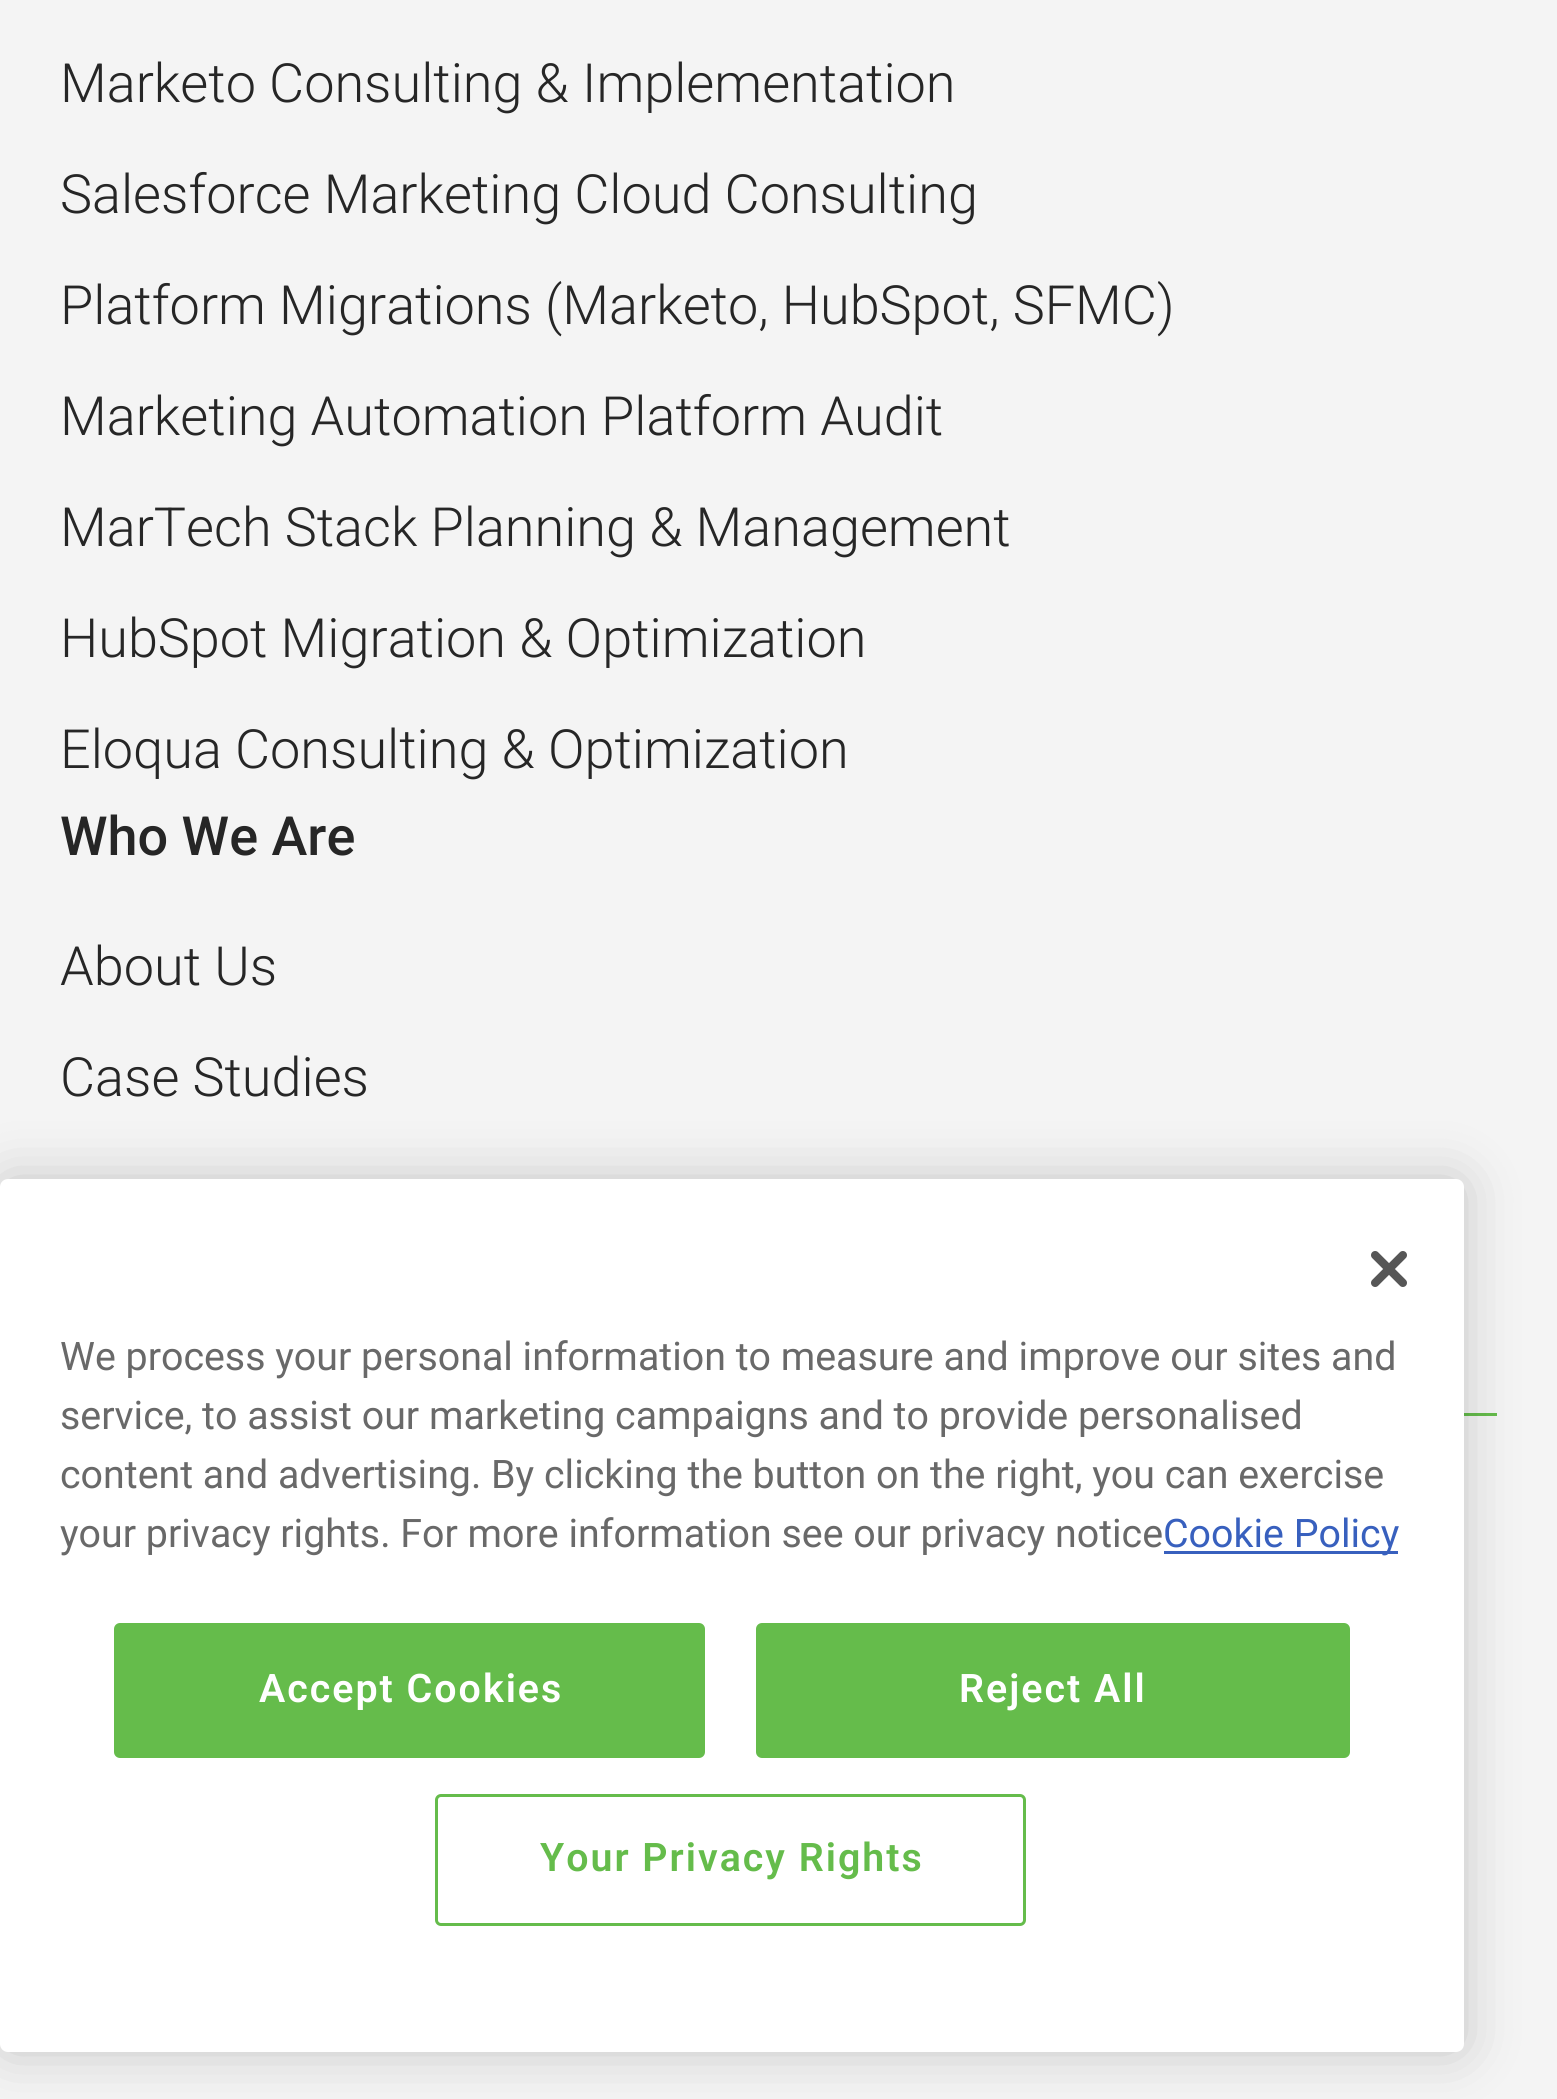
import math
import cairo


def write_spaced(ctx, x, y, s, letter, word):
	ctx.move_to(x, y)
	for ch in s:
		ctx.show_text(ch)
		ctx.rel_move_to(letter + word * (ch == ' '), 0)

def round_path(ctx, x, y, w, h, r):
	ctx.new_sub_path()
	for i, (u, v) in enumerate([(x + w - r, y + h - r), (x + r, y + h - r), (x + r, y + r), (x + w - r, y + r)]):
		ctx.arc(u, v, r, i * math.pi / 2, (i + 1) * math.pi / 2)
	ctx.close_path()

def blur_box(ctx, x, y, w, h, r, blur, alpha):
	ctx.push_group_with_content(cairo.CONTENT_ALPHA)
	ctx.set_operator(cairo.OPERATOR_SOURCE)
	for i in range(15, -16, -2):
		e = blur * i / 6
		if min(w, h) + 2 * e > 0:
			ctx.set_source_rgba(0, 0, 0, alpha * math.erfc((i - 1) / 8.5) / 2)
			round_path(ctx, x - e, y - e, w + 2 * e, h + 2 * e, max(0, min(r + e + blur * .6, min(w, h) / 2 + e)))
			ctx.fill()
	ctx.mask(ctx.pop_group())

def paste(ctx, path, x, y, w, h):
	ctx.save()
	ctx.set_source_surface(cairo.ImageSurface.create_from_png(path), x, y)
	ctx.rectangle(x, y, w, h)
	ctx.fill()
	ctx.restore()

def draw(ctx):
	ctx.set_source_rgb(0.957, 0.957, 0.957)
	ctx.paint()
	ctx.select_font_face('Roboto Light')
	ctx.set_font_size(54)
	ctx.set_source_rgb(0.149, 0.149, 0.149)
	for x, y, s in [
		(60, 102, 'Marketo Consulting & Implementation'),
		(60, 213, 'Salesforce Marketing Cloud Consulting'),
		(60, 324, 'Platform Migrations (Marketo, HubSpot, SFMC)'),
		(60, 435, 'Marketing Automation Platform Audit'),
		(60, 546, 'MarTech Stack Planning & Management'),
		(60, 657, 'HubSpot Migration & Optimization'),
		(60, 768, 'Eloqua Consulting & Optimization'),
	]:
		ctx.move_to(x, y)
		ctx.show_text(s)
	ctx.select_font_face('Roboto Medium')
	ctx.move_to(60, 855)
	ctx.show_text('Who We Are')
	ctx.select_font_face('Roboto Light')
	ctx.move_to(60, 985)
	ctx.show_text('About Us')
	ctx.move_to(60, 1096)
	ctx.show_text('Case Studies')
	ctx.set_source_rgb(0.396, 0.737, 0.294)
	ctx.rectangle(1464, 1413, 33, 3)
	ctx.fill()
	ctx.set_source_rgb(0, 0, 0)
	blur_box(ctx, 0, 1179, 1464, 873, 8, 27, 0.2)
	ctx.set_source_rgb(1, 1, 1)
	round_path(ctx, 0, 1179, 1464, 873, 8)
	ctx.fill()
	paste(ctx, 'media/1.png', 1371, 1251, 36, 36)
	ctx.select_font_face('Roboto')
	ctx.set_font_size(39.35)
	ctx.set_source_rgb(0.412, 0.412, 0.412)
	for x, y, s in [
		(60, 1370, 'We process your personal information to measure and improve our sites and'),
		(60, 1429, 'service, to assist our marketing campaigns and to provide personalised'),
		(60, 1488, 'content and advertising. By clicking the button on the right, you can exercise'),
		(60, 1547, 'your privacy rights. For more information see our privacy notice'),
	]:
		ctx.move_to(x, y)
		ctx.show_text(s)
	ctx.set_source_rgb(0.22, 0.376, 0.745)
	ctx.rectangle(1164, 1551, 234, 3)
	ctx.fill()
	ctx.move_to(1163, 1547)
	ctx.show_text('Cookie Policy')
	ctx.set_source_rgb(0.396, 0.737, 0.294)
	round_path(ctx, 115.5, 1624.5, 588, 132, 4.5)
	ctx.fill_preserve()
	ctx.set_line_width(3)
	ctx.stroke()
	ctx.select_font_face('Roboto SemiBold')
	ctx.set_source_rgb(1, 1, 1)
	write_spaced(ctx, 259, 1702, 'Accept Cookies', 2, 0)
	ctx.set_source_rgb(0.396, 0.737, 0.294)
	round_path(ctx, 757.5, 1624.5, 591, 132, 4.5)
	ctx.fill_preserve()
	ctx.stroke()
	ctx.set_source_rgb(1, 1, 1)
	write_spaced(ctx, 959, 1702, 'Reject All', 2, 0)
	round_path(ctx, 436.5, 1795.5, 588, 129, 4.5)
	ctx.set_source_rgb(0.396, 0.737, 0.294)
	ctx.stroke()
	write_spaced(ctx, 540, 1871, 'Your Privacy Rights', 2, 0)


surface = cairo.ImageSurface(cairo.FORMAT_RGB24, 1557, 2099)
ctx = cairo.Context(surface)
options = cairo.FontOptions()
options.set_hint_metrics(cairo.HINT_METRICS_OFF)
options.set_hint_style(cairo.HINT_STYLE_NONE)
ctx.set_font_options(options)
ctx.set_miter_limit(4)
draw(ctx)
surface.write_to_png('image.png')
